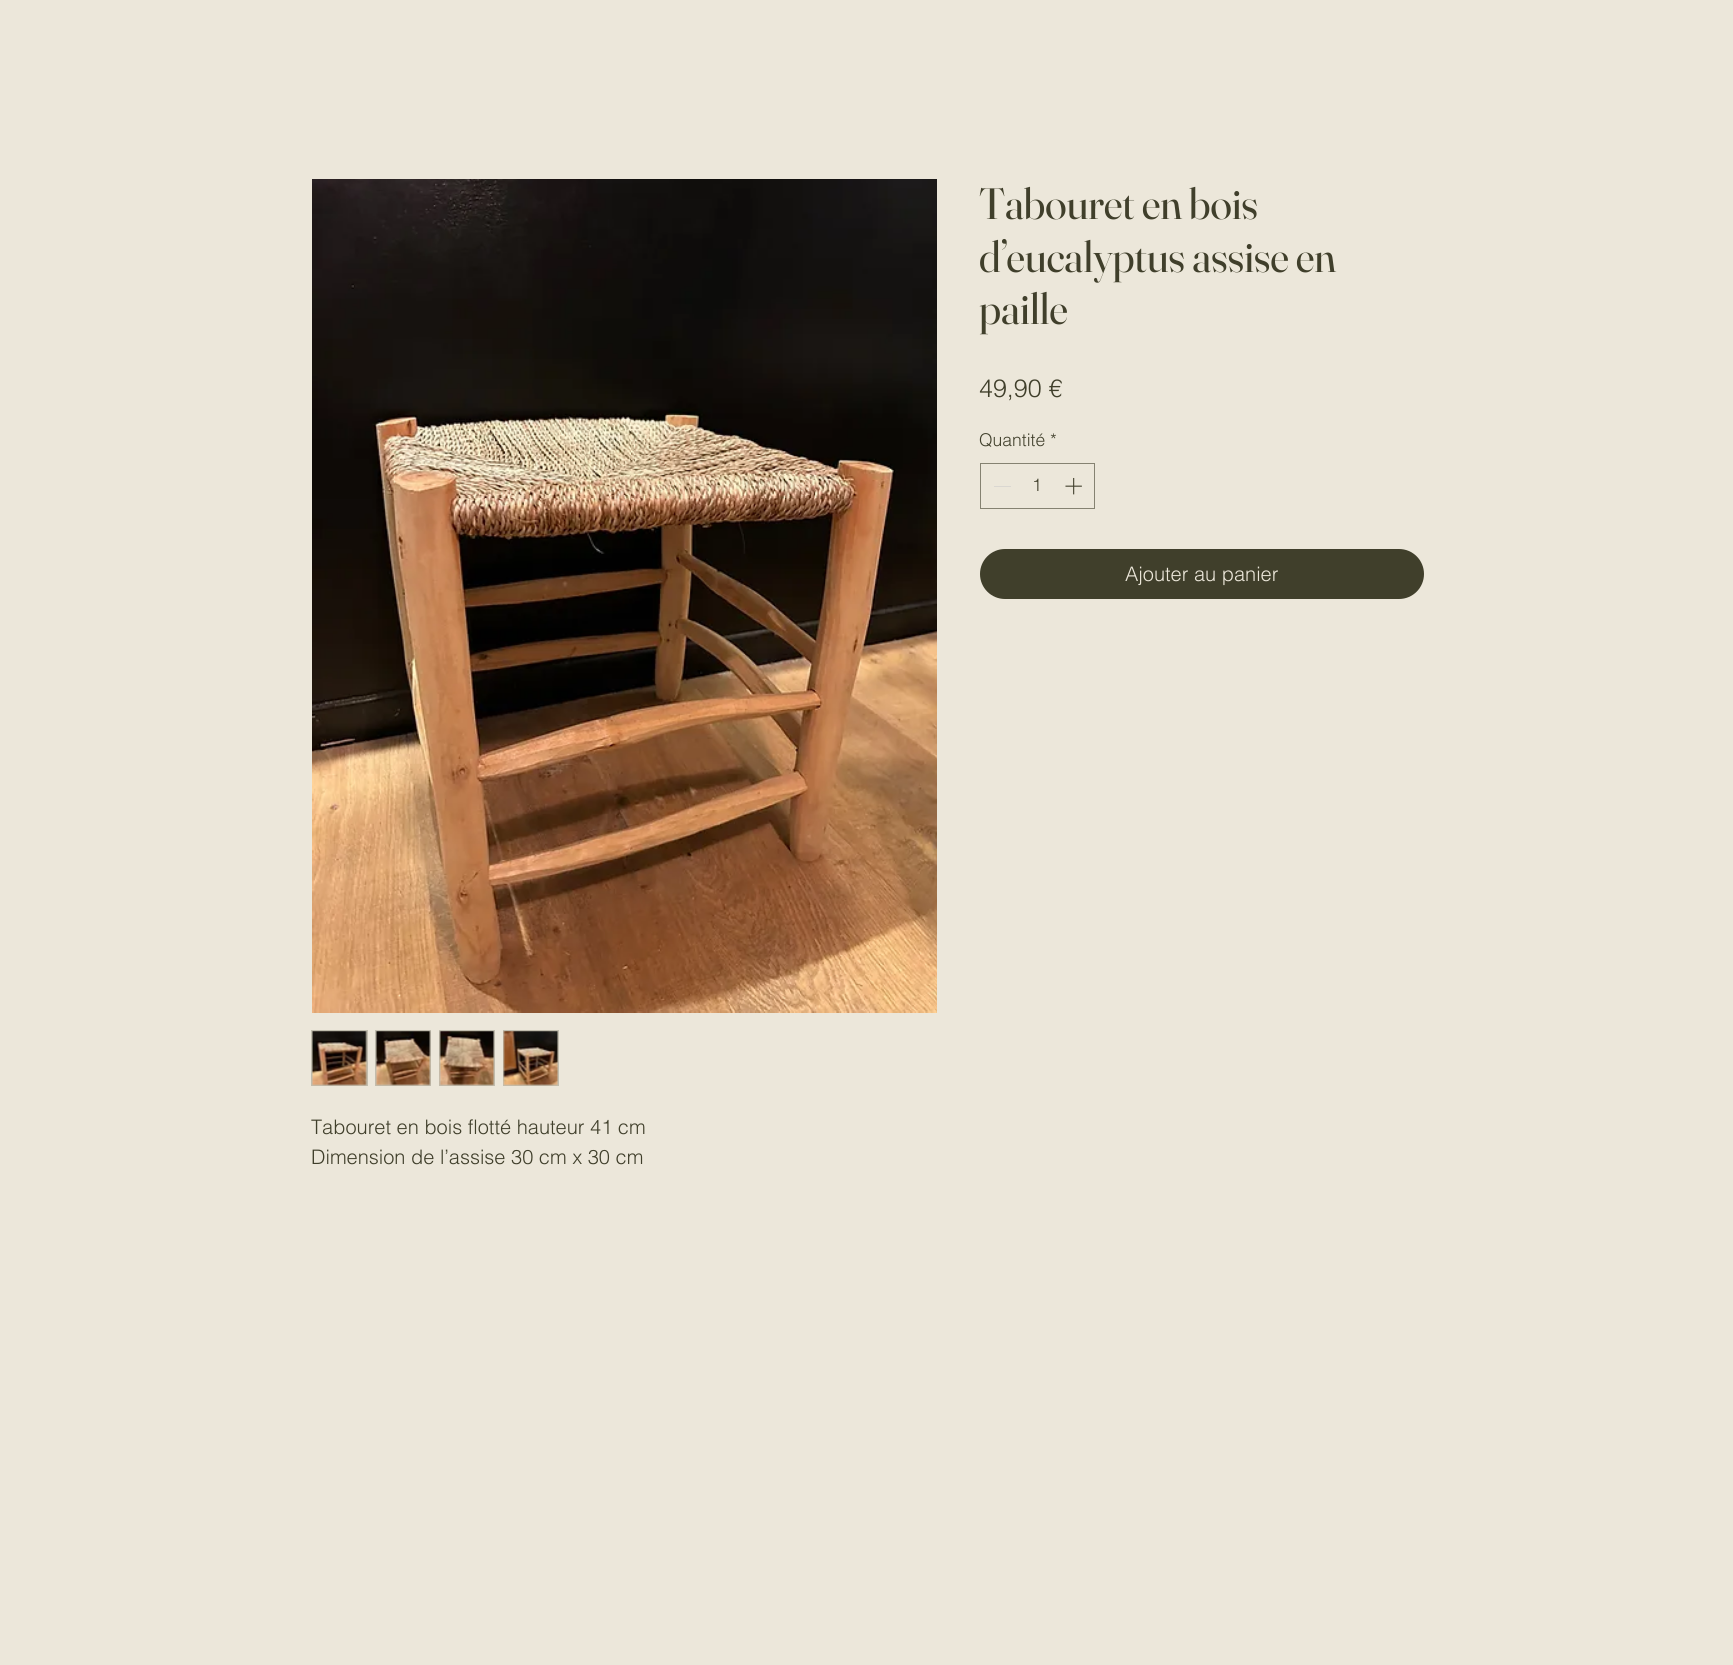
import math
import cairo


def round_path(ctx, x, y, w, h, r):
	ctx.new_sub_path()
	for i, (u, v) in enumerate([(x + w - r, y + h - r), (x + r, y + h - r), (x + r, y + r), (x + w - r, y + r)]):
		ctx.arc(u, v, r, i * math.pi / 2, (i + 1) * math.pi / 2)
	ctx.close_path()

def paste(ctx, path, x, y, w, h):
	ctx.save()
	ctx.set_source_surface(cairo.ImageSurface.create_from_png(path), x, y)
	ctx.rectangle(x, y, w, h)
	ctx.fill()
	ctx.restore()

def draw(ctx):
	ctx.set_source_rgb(0.925, 0.906, 0.855)
	ctx.paint()
	ctx.select_font_face('Fraunces')
	ctx.set_font_size(43.75)
	ctx.set_source_rgb(0.251, 0.247, 0.169)
	for x, y, s in [
		(979, 219, 'Tabouret en bois'),
		(979, 272, 'd’eucalyptus assise en'),
		(979, 324, 'paille'),
	]:
		ctx.move_to(x, y)
		ctx.show_text(s)
	ctx.select_font_face('helvetica Light')
	ctx.set_font_size(25)
	ctx.move_to(979, 397)
	ctx.show_text('49,90 €')
	ctx.set_font_size(17.5)
	ctx.move_to(979, 446)
	ctx.show_text('Quantité *')
	ctx.rectangle(980.5, 463.5, 114, 45)
	ctx.set_source_rgb(0.522, 0.51, 0.443)
	ctx.set_line_width(1)
	ctx.stroke()
	ctx.set_source_rgb(0.855, 0.843, 0.82)
	ctx.rectangle(994, 486, 17, 1)
	ctx.fill()
	ctx.set_source_rgb(0.251, 0.247, 0.169)
	ctx.move_to(1032, 491)
	ctx.show_text('1')
	paste(ctx, 'media/1.png', 1065, 477, 17, 18)
	round_path(ctx, 980, 549, 444, 50, 25)
	ctx.fill()
	ctx.set_font_size(20)
	ctx.set_source_rgb(0.925, 0.906, 0.855)
	ctx.move_to(1125, 581)
	ctx.show_text('Ajouter au panier')
	paste(ctx, 'media/2.png', 312, 179, 625, 834)
	ctx.set_source_rgb(0.757, 0.741, 0.682)
	ctx.rectangle(311, 1030, 57, 56)
	ctx.fill()
	paste(ctx, 'media/3.png', 312, 1031, 55, 55)
	ctx.rectangle(375, 1030, 56, 56)
	ctx.fill()
	paste(ctx, 'media/4.png', 375, 1031, 56, 55)
	ctx.rectangle(439, 1030, 56, 56)
	ctx.fill()
	paste(ctx, 'media/5.png', 439, 1031, 56, 55)
	ctx.rectangle(503, 1030, 56, 56)
	ctx.fill()
	paste(ctx, 'media/6.png', 503, 1031, 55, 55)
	ctx.set_source_rgb(0.251, 0.247, 0.169)
	ctx.move_to(311, 1134)
	ctx.show_text('Tabouret en bois flotté hauteur 41 cm')
	ctx.move_to(311, 1164)
	ctx.show_text('Dimension de l’assise 30 cm x 30 cm')


surface = cairo.ImageSurface(cairo.FORMAT_RGB24, 1733, 1665)
ctx = cairo.Context(surface)
options = cairo.FontOptions()
options.set_hint_metrics(cairo.HINT_METRICS_OFF)
options.set_hint_style(cairo.HINT_STYLE_NONE)
ctx.set_font_options(options)
ctx.set_miter_limit(4)
draw(ctx)
surface.write_to_png('image.png')
